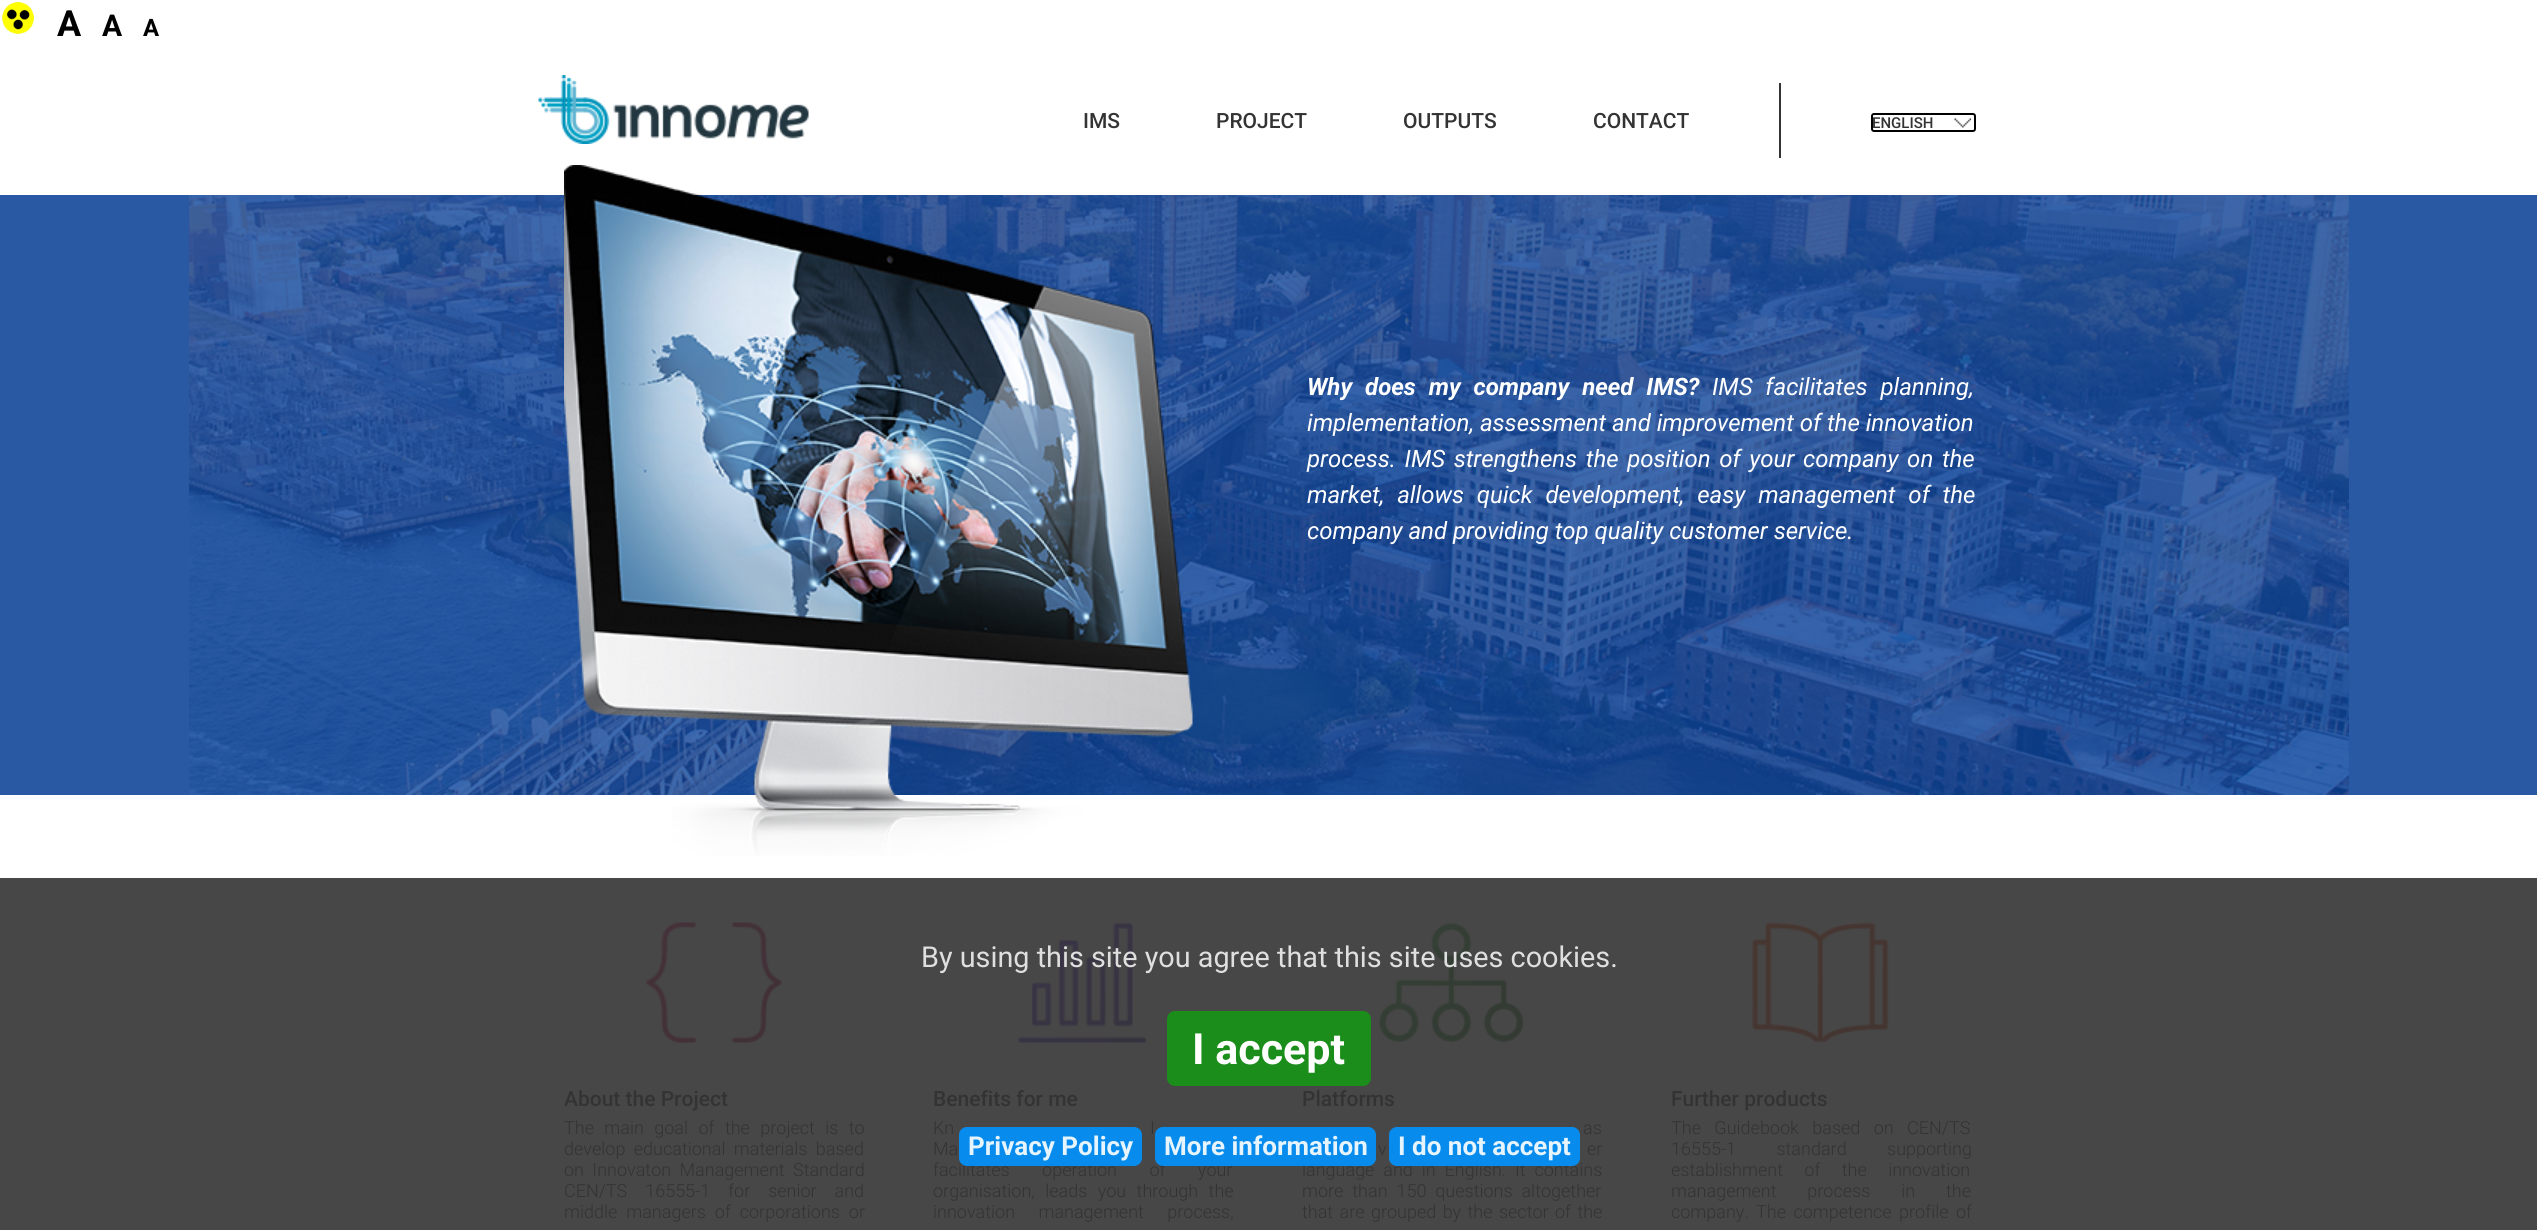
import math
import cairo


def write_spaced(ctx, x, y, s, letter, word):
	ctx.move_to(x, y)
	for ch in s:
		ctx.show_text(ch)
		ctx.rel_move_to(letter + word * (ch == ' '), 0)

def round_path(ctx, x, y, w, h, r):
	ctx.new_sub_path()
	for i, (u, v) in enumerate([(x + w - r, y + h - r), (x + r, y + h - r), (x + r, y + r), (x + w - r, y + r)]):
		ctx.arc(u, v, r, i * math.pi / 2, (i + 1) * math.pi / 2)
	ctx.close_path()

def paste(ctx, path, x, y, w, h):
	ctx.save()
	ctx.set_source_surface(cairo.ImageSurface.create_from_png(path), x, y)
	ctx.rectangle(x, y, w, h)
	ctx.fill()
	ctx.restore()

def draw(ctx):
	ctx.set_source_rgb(1, 1, 1)
	ctx.paint()
	ctx.set_source_rgb(0.278, 0.278, 0.278)
	ctx.rectangle(0, 878, 2537, 352)
	ctx.fill()
	paste(ctx, 'media/1.png', 2, 2, 32, 32)
	ctx.select_font_face('Roboto', cairo.FONT_SLANT_NORMAL, cairo.FONT_WEIGHT_BOLD)
	ctx.set_font_size(36)
	ctx.set_source_rgb(0, 0, 0)
	ctx.move_to(57, 36)
	ctx.show_text('A')
	ctx.set_font_size(30)
	ctx.move_to(102, 36)
	ctx.show_text('A')
	ctx.set_font_size(24)
	ctx.move_to(143, 36)
	ctx.show_text('A')
	paste(ctx, 'media/2.png', 538, 75, 271, 69)
	ctx.select_font_face('Roboto Medium')
	ctx.set_font_size(21)
	ctx.set_source_rgb(0.2, 0.2, 0.2)
	for x, y, s in [
		(1083, 128, 'IMS'),
		(1216, 128, 'PROJECT'),
		(1403, 128, 'OUTPUTS'),
		(1593, 128, 'CONTACT'),
	]:
		ctx.move_to(x, y)
		ctx.show_text(s)
	ctx.rectangle(1779, 83, 2, 75)
	ctx.fill()
	paste(ctx, 'media/3.png', 1954, 118, 17, 10)
	round_path(ctx, 1872, 114, 103, 17, 2)
	ctx.set_source_rgb(0, 0, 0)
	ctx.stroke()
	ctx.set_font_size(15)
	ctx.set_source_rgb(0.2, 0.2, 0.2)
	ctx.move_to(1872, 128)
	ctx.show_text('ENGLISH')
	ctx.set_source_rgb(0.161, 0.349, 0.635)
	ctx.rectangle(0, 195, 2537, 600)
	ctx.fill()
	paste(ctx, 'media/4.png', 189, 195, 2160, 600)
	paste(ctx, 'media/5.png', 564, 165, 629, 691)
	ctx.select_font_face('Roboto', cairo.FONT_SLANT_ITALIC, cairo.FONT_WEIGHT_BOLD)
	ctx.set_font_size(24)
	ctx.set_source_rgb(1, 1, 1)
	write_spaced(ctx, 1307, 395, 'Why does my company need IMS?', 0, 7)
	ctx.select_font_face('Roboto', cairo.FONT_SLANT_ITALIC)
	write_spaced(ctx, 1712, 395, 'IMS facilitates planning,', 0, 7)
	ctx.move_to(1307, 431)
	ctx.show_text('implementation, assessment and improvement of the innovation')
	write_spaced(ctx, 1307, 467, 'process. IMS strengthens the position of your company on the', 0, 2.75)
	write_spaced(ctx, 1307, 503, 'market, allows quick development, easy management of the', 0, 7)
	ctx.move_to(1307, 539)
	ctx.show_text('company and providing top quality customer service.')
	paste(ctx, 'media/7.png', 1018, 922, 128, 121)
	paste(ctx, 'media/8.png', 1378, 922, 146, 121)
	ctx.select_font_face('Roboto')
	ctx.set_font_size(28.8)
	ctx.set_source_rgb(0.875, 0.875, 0.875)
	ctx.move_to(921, 967)
	ctx.show_text('By using this site you agree that this site uses cookies.')
	ctx.set_source_rgb(0.102, 0.553, 0.102)
	round_path(ctx, 1167, 1011, 204, 75, 8)
	ctx.fill()
	ctx.select_font_face('Roboto', cairo.FONT_SLANT_NORMAL, cairo.FONT_WEIGHT_BOLD)
	ctx.set_font_size(43)
	ctx.set_source_rgb(1, 1, 1)
	ctx.move_to(1192, 1064)
	ctx.show_text('I accept')
	ctx.select_font_face('Roboto Light')
	ctx.set_font_size(18)
	ctx.set_source_rgb(0.2, 0.2, 0.2)
	write_spaced(ctx, 933, 1176, 'facilitates operation of your', 0, 28)
	ctx.set_source_rgba(0, 0.58, 1, 0.9)
	round_path(ctx, 959, 1127, 183, 39, 8)
	ctx.fill()
	ctx.select_font_face('Roboto', cairo.FONT_SLANT_NORMAL, cairo.FONT_WEIGHT_BOLD)
	ctx.set_font_size(26)
	ctx.set_source_rgb(0.902, 0.957, 0.992)
	ctx.move_to(968, 1155)
	ctx.show_text('Privacy Policy')
	ctx.select_font_face('Roboto Light')
	ctx.set_font_size(18)
	ctx.set_source_rgb(0.2, 0.2, 0.2)
	write_spaced(ctx, 1302, 1176, 'language and in English. It contains', 0, 4.5)
	ctx.set_source_rgba(0, 0.58, 1, 0.9)
	round_path(ctx, 1155, 1127, 221, 39, 8)
	ctx.fill()
	ctx.select_font_face('Roboto', cairo.FONT_SLANT_NORMAL, cairo.FONT_WEIGHT_BOLD)
	ctx.set_font_size(26)
	ctx.set_source_rgb(0.902, 0.957, 0.992)
	ctx.move_to(1164, 1155)
	ctx.show_text('More information')
	ctx.set_source_rgba(0, 0.58, 1, 0.9)
	round_path(ctx, 1389, 1127, 191, 39, 8)
	ctx.fill()
	ctx.set_source_rgb(0.902, 0.957, 0.992)
	ctx.move_to(1398, 1155)
	ctx.show_text('I do not accept')
	paste(ctx, 'media/6.png', 646, 922, 136, 121)
	ctx.select_font_face('Roboto Medium')
	ctx.set_font_size(21)
	ctx.set_source_rgb(0.2, 0.2, 0.2)
	ctx.move_to(564, 1106)
	ctx.show_text('About the Project')
	ctx.select_font_face('Roboto Light')
	ctx.set_font_size(18)
	write_spaced(ctx, 564, 1134, 'The main goal of the project is to', 0, 6)
	write_spaced(ctx, 564, 1155, 'develop educational materials based', 0, 4)
	write_spaced(ctx, 564, 1176, 'on Innovaton Management Standard', 0, 4)
	write_spaced(ctx, 564, 1197, 'CEN/TS 16555-1 for senior and', 0, 13.5)
	write_spaced(ctx, 564, 1218, 'middle managers of corporations or', 0, 4.5)
	ctx.select_font_face('Roboto Medium')
	ctx.set_font_size(21)
	ctx.move_to(933, 1106)
	ctx.show_text('Benefits for me')
	ctx.select_font_face('Roboto Light')
	ctx.set_font_size(18)
	for x, y, s in [
		(933, 1134, 'Kn'),
		(1150, 1134, 'I'),
		(933, 1155, 'Ma'),
	]:
		write_spaced(ctx, x, y, s, 0, 38)
	write_spaced(ctx, 933, 1197, 'organisation, leads you through the', 0, 6)
	write_spaced(ctx, 933, 1218, 'innovation management process,', 0, 19)
	ctx.select_font_face('Roboto Medium')
	ctx.set_font_size(21)
	ctx.move_to(1302, 1106)
	ctx.show_text('Platforms')
	ctx.select_font_face('Roboto Light')
	ctx.set_font_size(18)
	write_spaced(ctx, 1583, 1134, 'as', 0, 3)
	write_spaced(ctx, 1378, 1155, 'v', 0, 14)
	write_spaced(ctx, 1587, 1155, 'er', 0, 14)
	write_spaced(ctx, 1302, 1197, 'more than 150 questions altogether', 0, 4.5)
	write_spaced(ctx, 1302, 1218, 'that are grouped by the sector of the', 0, 2)
	paste(ctx, 'media/9.png', 1752, 922, 137, 121)
	ctx.select_font_face('Roboto Medium')
	ctx.set_font_size(21)
	ctx.move_to(1671, 1106)
	ctx.show_text('Further products')
	ctx.select_font_face('Roboto Light')
	ctx.set_font_size(18)
	write_spaced(ctx, 1671, 1134, 'The Guidebook based on CEN/TS', 0, 9)
	write_spaced(ctx, 1671, 1155, '16555-1 standard supporting', 0, 36)
	write_spaced(ctx, 1671, 1176, 'establishment of the innovation', 0, 17)
	write_spaced(ctx, 1671, 1197, 'management process in the', 0, 26.5)
	write_spaced(ctx, 1671, 1218, 'company. The competence profile of', 0, 3)


surface = cairo.ImageSurface(cairo.FORMAT_RGB24, 2537, 1230)
ctx = cairo.Context(surface)
options = cairo.FontOptions()
options.set_hint_metrics(cairo.HINT_METRICS_OFF)
options.set_hint_style(cairo.HINT_STYLE_NONE)
ctx.set_font_options(options)
ctx.set_miter_limit(4)
draw(ctx)
surface.write_to_png('image.png')
